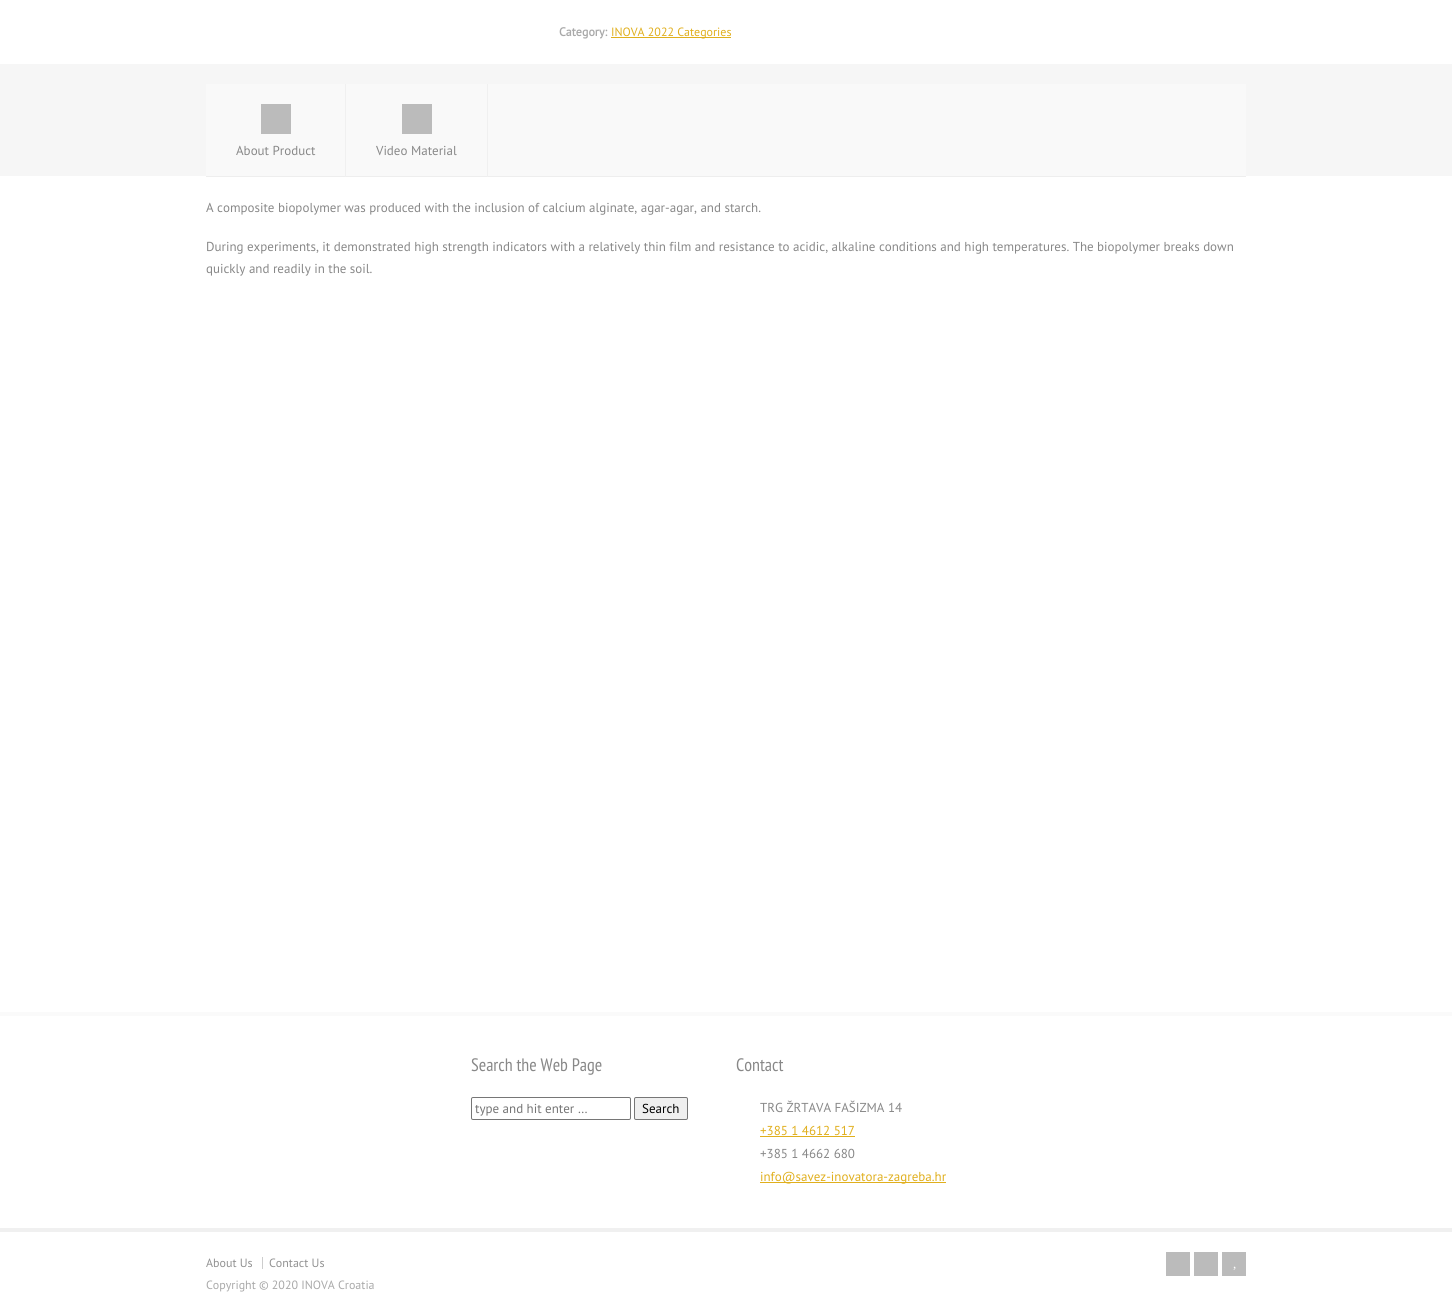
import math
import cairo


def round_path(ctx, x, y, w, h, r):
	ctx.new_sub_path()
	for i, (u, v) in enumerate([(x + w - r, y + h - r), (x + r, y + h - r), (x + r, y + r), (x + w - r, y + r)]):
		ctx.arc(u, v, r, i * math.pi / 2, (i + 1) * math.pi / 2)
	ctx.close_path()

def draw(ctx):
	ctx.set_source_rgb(1, 1, 1)
	ctx.paint()
	ctx.select_font_face('PT Sans', cairo.FONT_SLANT_NORMAL, cairo.FONT_WEIGHT_BOLD)
	ctx.set_font_size(12)
	ctx.set_source_rgb(0.663, 0.663, 0.663)
	ctx.move_to(559, 36)
	ctx.show_text('Category:')
	ctx.set_source_rgb(0.878, 0.686, 0.114)
	ctx.rectangle(611, 37, 120, 1)
	ctx.fill()
	ctx.select_font_face('PT Sans')
	ctx.move_to(611, 36)
	ctx.show_text('INOVA 2022 Categories')
	ctx.set_source_rgb(0.961, 0.961, 0.961)
	ctx.rectangle(0, 64, 1452, 112)
	ctx.fill()
	ctx.set_source_rgb(0.976, 0.976, 0.976)
	ctx.rectangle(206, 84, 1040, 92)
	ctx.fill()
	ctx.set_source_rgb(0.933, 0.933, 0.933)
	ctx.rectangle(206, 176, 1040, 1)
	ctx.fill()
	ctx.set_source_rgb(0.941, 0.941, 0.941)
	ctx.rectangle(345, 84, 1, 93)
	ctx.fill()
	ctx.set_source_rgb(0.733, 0.733, 0.733)
	ctx.rectangle(261, 104, 30, 30)
	ctx.fill()
	ctx.set_font_size(13)
	ctx.set_source_rgb(0.533, 0.533, 0.533)
	ctx.move_to(236, 155)
	ctx.show_text('About Product')
	ctx.set_source_rgb(0.941, 0.941, 0.941)
	ctx.rectangle(487, 84, 1, 93)
	ctx.fill()
	ctx.set_source_rgb(0.733, 0.733, 0.733)
	ctx.rectangle(402, 104, 30, 30)
	ctx.fill()
	ctx.set_source_rgb(0.533, 0.533, 0.533)
	for x, y, s in [
		(376, 155, 'Video Material'),
		(206, 212, 'A composite biopolymer was produced with the inclusion of calcium alginate, agar-agar, and starch.'),
		(206, 251, 'During experiments, it demonstrated high strength indicators with a relatively thin film and resistance to acidic, alkaline conditions and high temperatures. The biopolymer breaks down'),
		(206, 273, 'quickly and readily in the soil.'),
	]:
		ctx.move_to(x, y)
		ctx.show_text(s)
	ctx.set_source_rgb(0.98, 0.98, 0.98)
	ctx.rectangle(0, 1012, 1452, 4)
	ctx.fill()
	ctx.select_font_face('PT Sans Narrow')
	ctx.set_font_size(18)
	ctx.set_source_rgb(0.533, 0.533, 0.533)
	ctx.move_to(471, 1071)
	ctx.show_text('Search the Web Page')
	round_path(ctx, 471.5, 1097.5, 159, 22, 1.5)
	ctx.set_source_rgb(0.463, 0.463, 0.463)
	ctx.set_line_width(1)
	ctx.stroke()
	ctx.select_font_face('PT Sans')
	ctx.set_font_size(13)
	ctx.set_source_rgb(0.459, 0.459, 0.459)
	ctx.move_to(475, 1113)
	ctx.show_text('type and hit enter …')
	ctx.set_source_rgb(0.937, 0.937, 0.937)
	round_path(ctx, 634.5, 1097.5, 53, 22, 1.5)
	ctx.fill_preserve()
	ctx.set_source_rgb(0.463, 0.463, 0.463)
	ctx.stroke()
	ctx.set_source_rgb(0, 0, 0)
	ctx.move_to(642, 1113)
	ctx.show_text('Search')
	ctx.select_font_face('PT Sans Narrow')
	ctx.set_font_size(18)
	ctx.set_source_rgb(0.533, 0.533, 0.533)
	ctx.move_to(736, 1071)
	ctx.show_text('Contact')
	ctx.select_font_face('PT Sans')
	ctx.set_font_size(13)
	ctx.move_to(760, 1112)
	ctx.show_text('TRG ŽRTAVA FAŠIZMA 14')
	ctx.set_source_rgb(0.878, 0.686, 0.114)
	ctx.move_to(760, 1135)
	ctx.show_text('+385 1 4612 517')
	ctx.rectangle(760, 1136, 95, 1)
	ctx.fill()
	ctx.set_source_rgb(0.533, 0.533, 0.533)
	ctx.move_to(760, 1158)
	ctx.show_text('+385 1 4662 680')
	ctx.set_source_rgb(0.878, 0.686, 0.114)
	ctx.rectangle(760, 1182, 186, 1)
	ctx.fill()
	ctx.move_to(760, 1181)
	ctx.show_text('info@savez-inovatora-zagreba.hr')
	ctx.set_source_rgb(0.941, 0.941, 0.941)
	ctx.rectangle(0, 1228, 1452, 4)
	ctx.fill()
	ctx.set_font_size(12)
	ctx.set_source_rgb(0.569, 0.569, 0.569)
	ctx.move_to(206, 1267)
	ctx.show_text('About Us')
	ctx.set_source_rgb(0.804, 0.804, 0.804)
	ctx.rectangle(262, 1257, 1, 12)
	ctx.fill()
	ctx.set_source_rgb(0.569, 0.569, 0.569)
	ctx.move_to(269, 1267)
	ctx.show_text('Contact Us')
	ctx.set_source_rgb(0.663, 0.663, 0.663)
	ctx.move_to(206, 1289)
	ctx.show_text('Copyright © 2020 INOVA Croatia')
	ctx.set_source_rgb(0.733, 0.733, 0.733)
	ctx.rectangle(1166, 1252, 24, 24)
	ctx.rectangle(1194, 1252, 24, 24)
	ctx.rectangle(1222, 1252, 24, 24)
	ctx.fill()
	ctx.select_font_face('Liberation Serif')
	ctx.set_font_size(13)
	ctx.set_source_rgb(1, 1, 1)
	ctx.move_to(1233, 1268)
	ctx.show_text(',')


surface = cairo.ImageSurface(cairo.FORMAT_RGB24, 1452, 1296)
ctx = cairo.Context(surface)
options = cairo.FontOptions()
options.set_hint_metrics(cairo.HINT_METRICS_OFF)
options.set_hint_style(cairo.HINT_STYLE_NONE)
ctx.set_font_options(options)
ctx.set_miter_limit(4)
draw(ctx)
surface.write_to_png('image.png')
